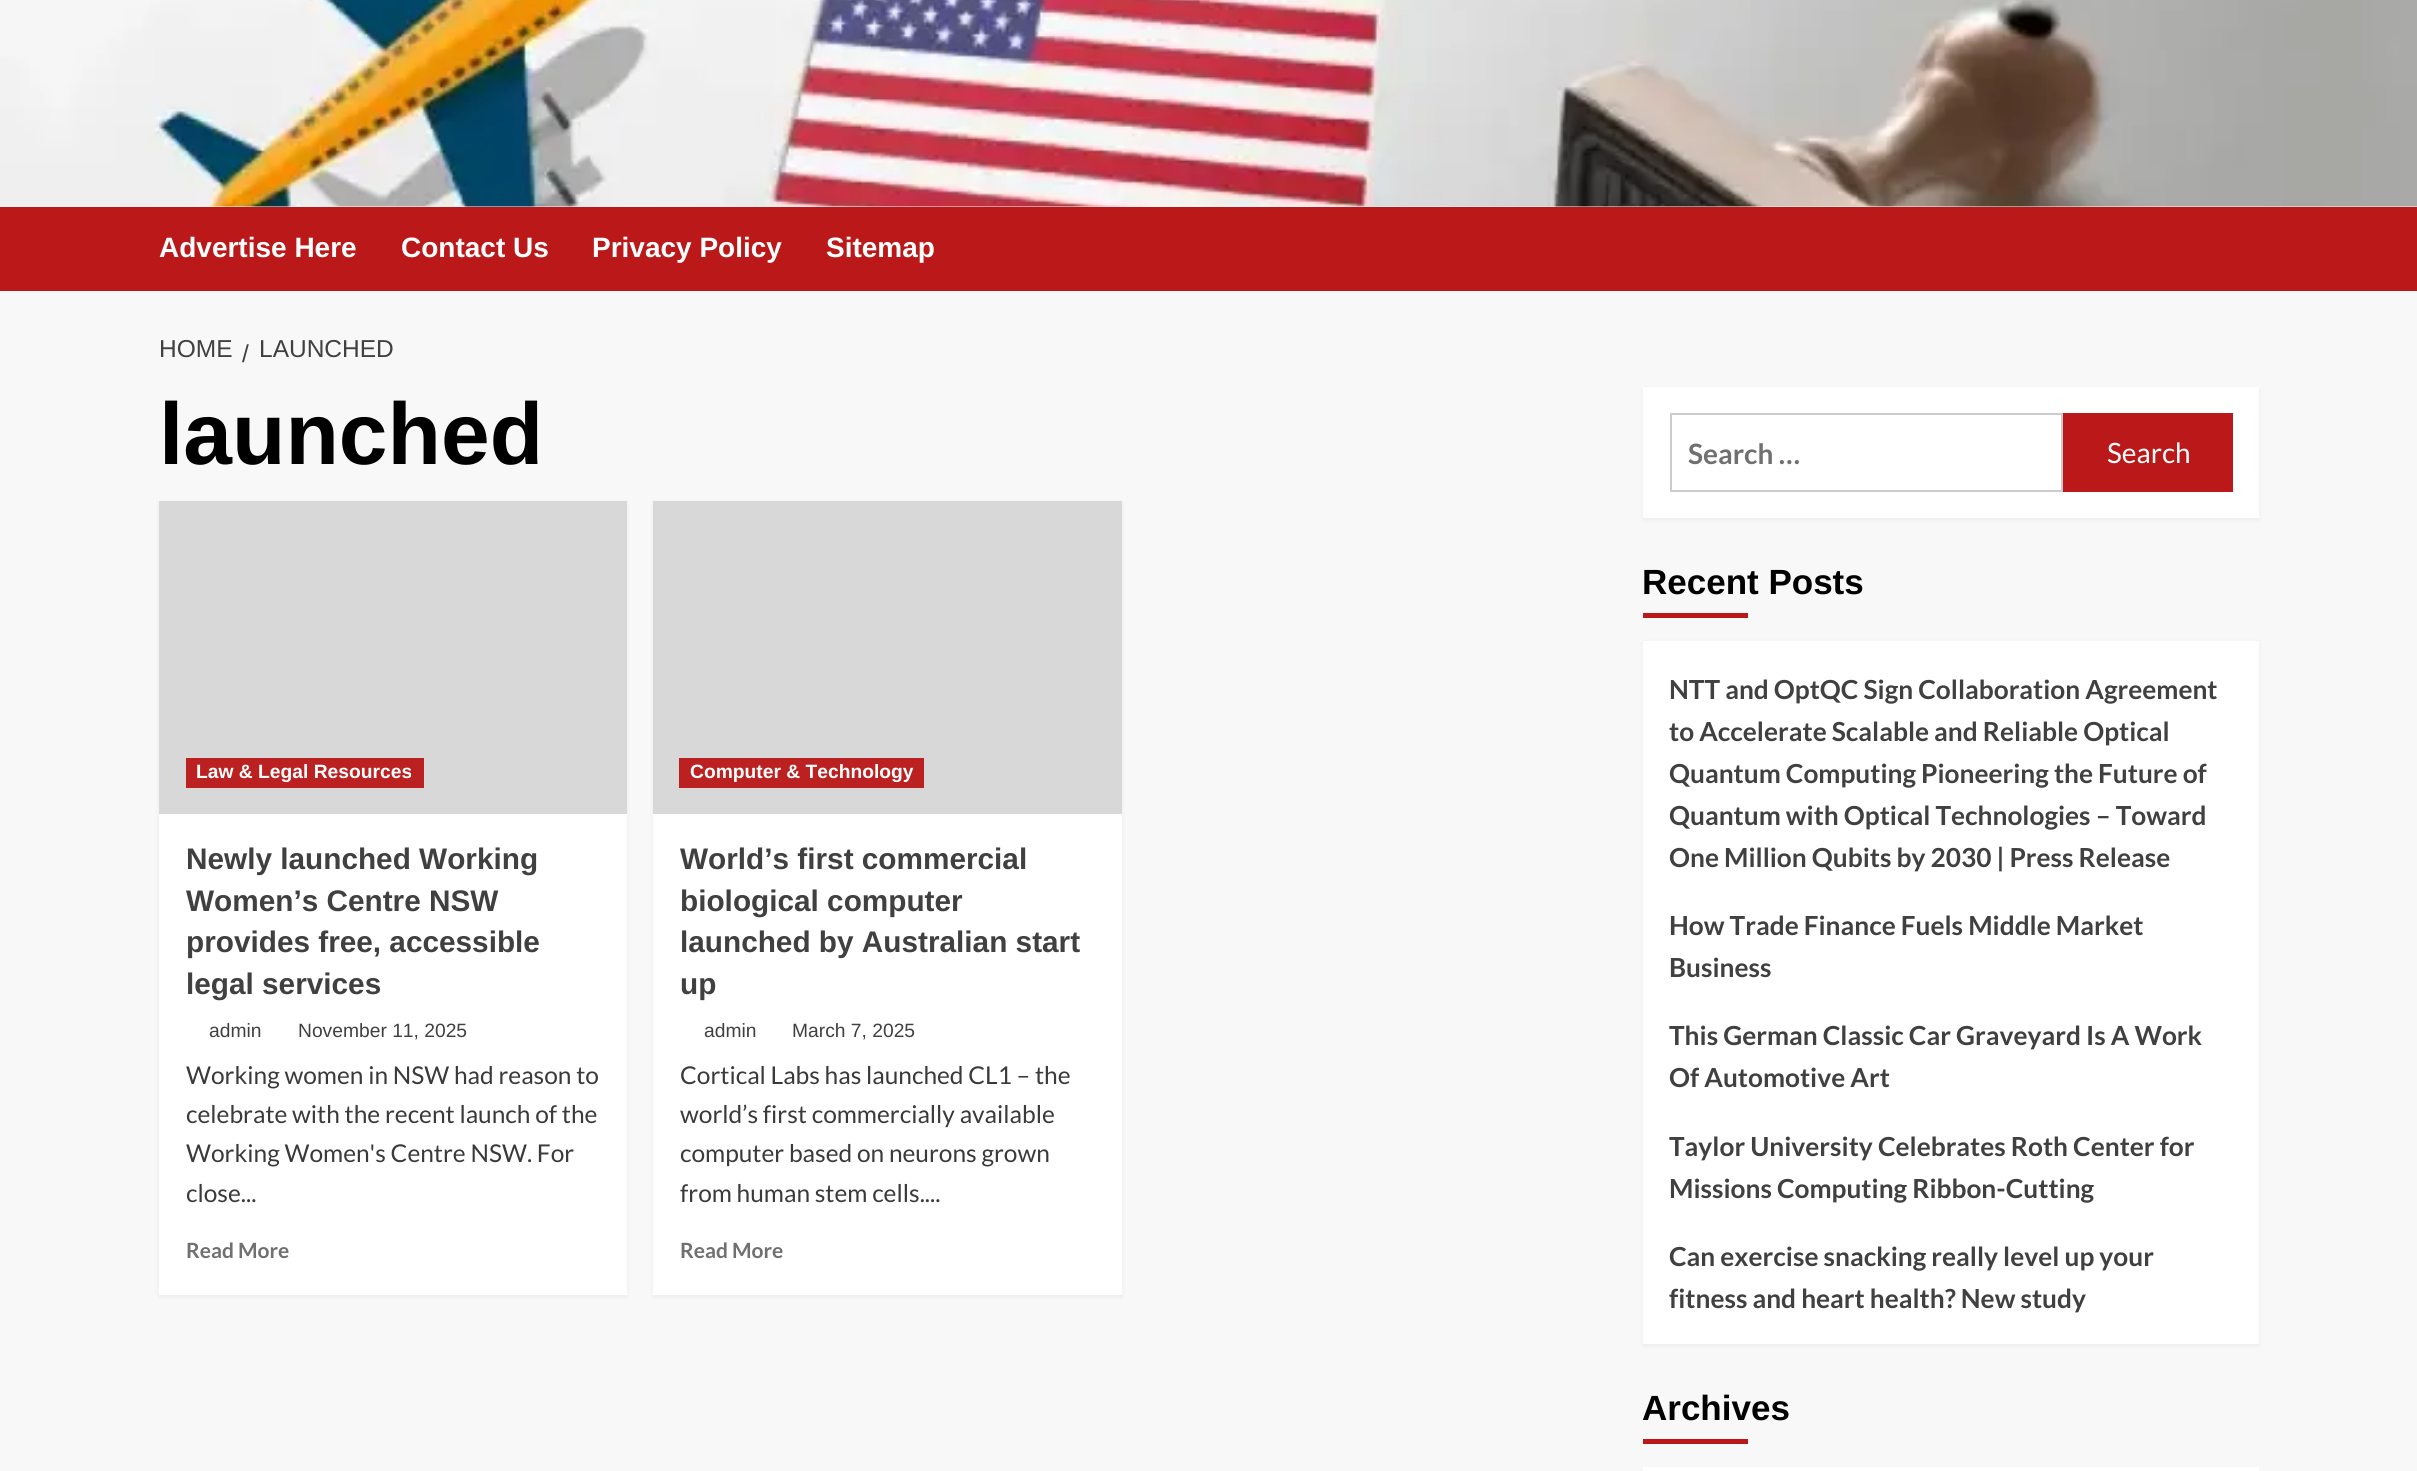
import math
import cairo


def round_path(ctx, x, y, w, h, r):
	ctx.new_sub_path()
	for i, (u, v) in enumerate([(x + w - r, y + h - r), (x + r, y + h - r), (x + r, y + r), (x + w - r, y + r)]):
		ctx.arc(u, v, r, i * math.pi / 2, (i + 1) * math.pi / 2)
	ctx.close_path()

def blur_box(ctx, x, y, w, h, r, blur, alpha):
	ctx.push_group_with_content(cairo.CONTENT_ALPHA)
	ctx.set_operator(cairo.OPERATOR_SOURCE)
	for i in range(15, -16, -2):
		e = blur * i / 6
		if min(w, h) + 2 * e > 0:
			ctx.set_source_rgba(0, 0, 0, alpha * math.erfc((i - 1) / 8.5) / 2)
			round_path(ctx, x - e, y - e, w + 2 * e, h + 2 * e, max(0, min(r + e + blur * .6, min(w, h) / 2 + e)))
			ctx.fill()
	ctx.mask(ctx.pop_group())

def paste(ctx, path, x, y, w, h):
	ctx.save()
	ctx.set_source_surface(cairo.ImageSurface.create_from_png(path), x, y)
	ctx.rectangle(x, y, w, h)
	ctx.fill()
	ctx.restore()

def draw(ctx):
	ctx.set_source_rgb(0.969, 0.969, 0.969)
	ctx.paint()
	paste(ctx, 'media/1.png', 0, 0, 2417, 207)
	ctx.set_source_rgb(0.733, 0.098, 0.098)
	ctx.rectangle(0, 207, 2417, 84)
	ctx.fill()
	ctx.select_font_face('Liberation Sans', cairo.FONT_SLANT_NORMAL, cairo.FONT_WEIGHT_BOLD)
	ctx.set_font_size(28)
	ctx.set_source_rgb(1, 1, 1)
	for x, y, s in [
		(159, 257, 'Advertise Here'),
		(401, 257, 'Contact Us'),
		(592, 257, 'Privacy Policy'),
		(826, 257, 'Sitemap'),
	]:
		ctx.move_to(x, y)
		ctx.show_text(s)
	ctx.select_font_face('Liberation Sans')
	ctx.set_font_size(24.5)
	ctx.set_source_rgb(0.251, 0.251, 0.251)
	for x, y, s in [
		(159, 357, 'HOME'),
		(242, 362, '/'),
		(259, 357, 'LAUNCHED'),
	]:
		ctx.move_to(x, y)
		ctx.show_text(s)
	ctx.select_font_face('Liberation Sans', cairo.FONT_SLANT_NORMAL, cairo.FONT_WEIGHT_BOLD)
	ctx.set_font_size(87.5)
	ctx.set_source_rgb(0, 0, 0)
	ctx.move_to(159, 464)
	ctx.show_text('launched')
	ctx.set_source_rgb(0, 0, 0)
	blur_box(ctx, 159, 502, 468, 795, 0, 2, 0.05)
	ctx.set_source_rgb(1, 1, 1)
	ctx.rectangle(159, 814, 468, 481)
	ctx.fill()
	ctx.set_source_rgb(0.847, 0.847, 0.847)
	ctx.rectangle(159, 501, 468, 313)
	ctx.fill()
	ctx.set_source_rgb(0.737, 0.129, 0.129)
	ctx.rectangle(186, 758, 238, 30)
	ctx.fill()
	ctx.set_font_size(19.25)
	ctx.set_source_rgb(1, 1, 1)
	ctx.move_to(196, 778)
	ctx.show_text('Law & Legal Resources')
	ctx.set_font_size(29.75)
	ctx.set_source_rgb(0.251, 0.251, 0.251)
	for x, y, s in [
		(186, 869, 'Newly launched Working'),
		(186, 911, 'Women’s Centre NSW'),
		(186, 952, 'provides free, accessible'),
		(186, 994, 'legal services'),
	]:
		ctx.move_to(x, y)
		ctx.show_text(s)
	ctx.select_font_face('Liberation Sans')
	ctx.set_font_size(19.25)
	ctx.move_to(209, 1037)
	ctx.show_text('admin')
	ctx.move_to(298, 1037)
	ctx.show_text('November 11, 2025')
	ctx.select_font_face('Lato')
	ctx.set_font_size(24.5)
	ctx.set_source_rgb(0.227, 0.227, 0.227)
	for x, y, s in [
		(186, 1084, 'Working women in NSW had reason to'),
		(186, 1123, 'celebrate with the recent launch of the'),
		(186, 1162, 'Working Women\'s Centre NSW. For'),
		(186, 1202, 'close...'),
	]:
		ctx.move_to(x, y)
		ctx.show_text(s)
	ctx.select_font_face('Lato', cairo.FONT_SLANT_NORMAL, cairo.FONT_WEIGHT_BOLD)
	ctx.set_font_size(21)
	ctx.set_source_rgb(0.439, 0.439, 0.439)
	ctx.move_to(186, 1258)
	ctx.show_text('Read More')
	ctx.set_source_rgb(0, 0, 0)
	blur_box(ctx, 653, 502, 469, 795, 0, 2, 0.05)
	ctx.set_source_rgb(1, 1, 1)
	ctx.rectangle(653, 814, 469, 481)
	ctx.fill()
	ctx.set_source_rgb(0.847, 0.847, 0.847)
	ctx.rectangle(653, 501, 469, 313)
	ctx.fill()
	ctx.set_source_rgb(0.737, 0.129, 0.129)
	ctx.rectangle(679, 758, 245, 30)
	ctx.fill()
	ctx.select_font_face('Liberation Sans', cairo.FONT_SLANT_NORMAL, cairo.FONT_WEIGHT_BOLD)
	ctx.set_font_size(19.25)
	ctx.set_source_rgb(1, 1, 1)
	ctx.move_to(690, 778)
	ctx.show_text('Computer & Technology')
	ctx.set_font_size(29.75)
	ctx.set_source_rgb(0.251, 0.251, 0.251)
	for x, y, s in [
		(680, 869, 'World’s first commercial'),
		(680, 911, 'biological computer'),
		(680, 952, 'launched by Australian start'),
		(680, 994, 'up'),
	]:
		ctx.move_to(x, y)
		ctx.show_text(s)
	ctx.select_font_face('Liberation Sans')
	ctx.set_font_size(19.25)
	ctx.move_to(704, 1037)
	ctx.show_text('admin')
	ctx.move_to(792, 1037)
	ctx.show_text('March 7, 2025')
	ctx.select_font_face('Lato')
	ctx.set_font_size(24.5)
	ctx.set_source_rgb(0.227, 0.227, 0.227)
	for x, y, s in [
		(680, 1084, 'Cortical Labs has launched CL1 – the'),
		(680, 1123, 'world’s first commercially available'),
		(680, 1162, 'computer based on neurons grown'),
		(680, 1202, 'from human stem cells....'),
	]:
		ctx.move_to(x, y)
		ctx.show_text(s)
	ctx.select_font_face('Lato', cairo.FONT_SLANT_NORMAL, cairo.FONT_WEIGHT_BOLD)
	ctx.set_font_size(21)
	ctx.set_source_rgb(0.439, 0.439, 0.439)
	ctx.move_to(680, 1258)
	ctx.show_text('Read More')
	ctx.set_source_rgb(0, 0, 0)
	blur_box(ctx, 1643, 389, 616, 131, 0, 2, 0.05)
	ctx.set_source_rgb(1, 1, 1)
	ctx.rectangle(1643, 387, 616, 131)
	ctx.fill()
	ctx.rectangle(1671, 414, 391, 77)
	ctx.set_source_rgb(0.8, 0.8, 0.8)
	ctx.stroke()
	ctx.set_font_size(28)
	ctx.set_source_rgb(0.439, 0.439, 0.439)
	ctx.move_to(1688, 464)
	ctx.show_text('Search …')
	ctx.set_source_rgb(0.733, 0.098, 0.098)
	ctx.rectangle(2063, 413, 170, 79)
	ctx.fill()
	ctx.select_font_face('Lato')
	ctx.set_source_rgb(1, 1, 1)
	ctx.move_to(2107, 463)
	ctx.show_text('Search')
	ctx.select_font_face('Liberation Sans', cairo.FONT_SLANT_NORMAL, cairo.FONT_WEIGHT_BOLD)
	ctx.set_font_size(35)
	ctx.set_source_rgb(0, 0, 0)
	ctx.move_to(1642, 594)
	ctx.show_text('Recent Posts')
	ctx.set_source_rgb(0.733, 0.098, 0.098)
	ctx.rectangle(1643, 613, 105, 5)
	ctx.fill()
	ctx.set_source_rgb(0, 0, 0)
	blur_box(ctx, 1643, 642, 616, 704, 0, 2, 0.05)
	ctx.set_source_rgb(1, 1, 1)
	ctx.rectangle(1643, 641, 616, 703)
	ctx.fill()
	ctx.select_font_face('Lato', cairo.FONT_SLANT_NORMAL, cairo.FONT_WEIGHT_BOLD)
	ctx.set_font_size(26.25)
	ctx.set_source_rgb(0.251, 0.251, 0.251)
	for x, y, s in [
		(1669, 699, 'NTT and OptQC Sign Collaboration Agreement'),
		(1669, 741, 'to Accelerate Scalable and Reliable Optical'),
		(1669, 783, 'Quantum Computing Pioneering the Future of'),
		(1669, 825, 'Quantum with Optical Technologies – Toward'),
		(1669, 867, 'One Million Qubits by 2030 | Press Release'),
		(1669, 935, 'How Trade Finance Fuels Middle Market'),
		(1669, 977, 'Business'),
		(1669, 1045, 'This German Classic Car Graveyard Is A Work'),
		(1669, 1087, 'Of Automotive Art'),
		(1669, 1156, 'Taylor University Celebrates Roth Center for'),
		(1669, 1198, 'Missions Computing Ribbon-Cutting'),
		(1669, 1266, 'Can exercise snacking really level up your'),
		(1669, 1308, 'fitness and heart health? New study'),
	]:
		ctx.move_to(x, y)
		ctx.show_text(s)
	ctx.select_font_face('Liberation Sans', cairo.FONT_SLANT_NORMAL, cairo.FONT_WEIGHT_BOLD)
	ctx.set_font_size(35)
	ctx.set_source_rgb(0, 0, 0)
	ctx.move_to(1642, 1420)
	ctx.show_text('Archives')
	ctx.set_source_rgb(0.733, 0.098, 0.098)
	ctx.rectangle(1643, 1439, 105, 5)
	ctx.fill()
	ctx.set_source_rgb(1, 1, 1)
	ctx.rectangle(1643, 1467, 616, 4)
	ctx.fill()


surface = cairo.ImageSurface(cairo.FORMAT_RGB24, 2417, 1471)
ctx = cairo.Context(surface)
options = cairo.FontOptions()
options.set_hint_metrics(cairo.HINT_METRICS_OFF)
options.set_hint_style(cairo.HINT_STYLE_NONE)
ctx.set_font_options(options)
ctx.set_miter_limit(4)
draw(ctx)
surface.write_to_png('image.png')
